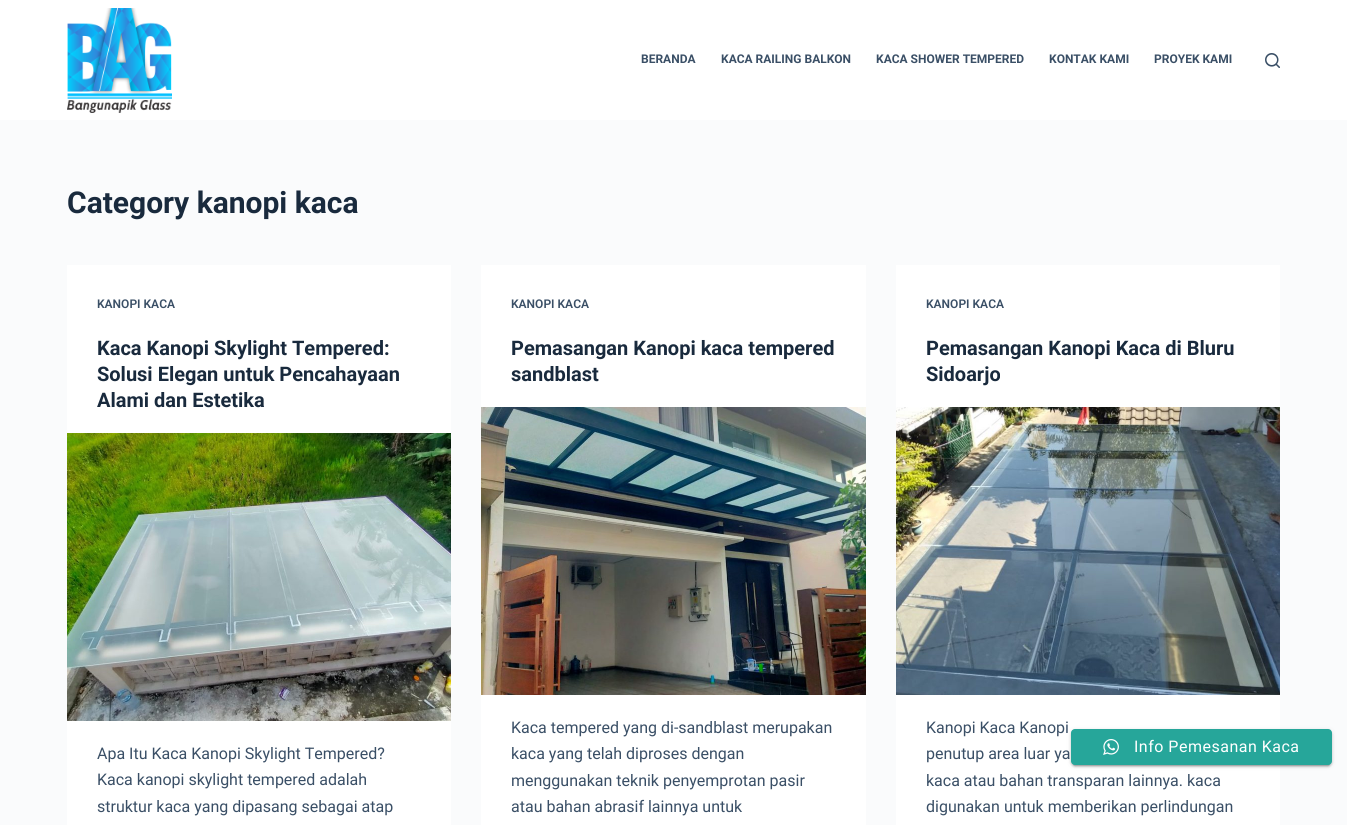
import math
import cairo


def write_spaced(ctx, x, y, s, letter, word):
	ctx.move_to(x, y)
	for ch in s:
		ctx.show_text(ch)
		ctx.rel_move_to(letter + word * (ch == ' '), 0)

def round_path(ctx, x, y, w, h, r):
	ctx.new_sub_path()
	for i, (u, v) in enumerate([(x + w - r, y + h - r), (x + r, y + h - r), (x + r, y + r), (x + w - r, y + r)]):
		ctx.arc(u, v, r, i * math.pi / 2, (i + 1) * math.pi / 2)
	ctx.close_path()

def blur_box(ctx, x, y, w, h, r, blur, alpha):
	ctx.push_group_with_content(cairo.CONTENT_ALPHA)
	ctx.set_operator(cairo.OPERATOR_SOURCE)
	for i in range(15, -16, -2):
		e = blur * i / 6
		if min(w, h) + 2 * e > 0:
			ctx.set_source_rgba(0, 0, 0, alpha * math.erfc((i - 1) / 8.5) / 2)
			round_path(ctx, x - e, y - e, w + 2 * e, h + 2 * e, max(0, min(r + e + blur * .6, min(w, h) / 2 + e)))
			ctx.fill()
	ctx.mask(ctx.pop_group())

def paste(ctx, path, x, y, w, h):
	ctx.save()
	ctx.set_source_surface(cairo.ImageSurface.create_from_png(path), x, y)
	ctx.rectangle(x, y, w, h)
	ctx.fill()
	ctx.restore()

def draw(ctx):
	ctx.set_source_rgb(0.98, 0.984, 0.988)
	ctx.paint()
	ctx.set_source_rgb(1, 1, 1)
	ctx.rectangle(0, 0, 1347, 120)
	ctx.fill()
	paste(ctx, 'media/1.png', 67, 8, 105, 105)
	ctx.select_font_face('Roboto', cairo.FONT_SLANT_NORMAL, cairo.FONT_WEIGHT_BOLD)
	ctx.set_font_size(12)
	ctx.set_source_rgb(0.227, 0.31, 0.4)
	for x, y, s in [
		(641, 63, 'BERANDA'),
		(721, 63, 'KACA RAILING BALKON'),
		(876, 63, 'KACA SHOWER TEMPERED'),
		(1049, 63, 'KONTAK KAMI'),
		(1154, 63, 'PROYEK KAMI'),
	]:
		ctx.move_to(x, y)
		ctx.show_text(s)
	paste(ctx, 'media/2.png', 1265, 53, 15, 15)
	ctx.set_font_size(30)
	ctx.set_source_rgb(0.098, 0.165, 0.239)
	ctx.move_to(67, 213)
	ctx.show_text('Category kanopi kaca')
	ctx.set_source_rgb(1, 1, 1)
	ctx.rectangle(67, 265, 384, 560)
	ctx.fill()
	ctx.select_font_face('Roboto SemiBold')
	ctx.set_font_size(12)
	ctx.set_source_rgb(0.227, 0.31, 0.4)
	ctx.move_to(97, 308)
	ctx.show_text('KANOPI KACA')
	ctx.select_font_face('Roboto', cairo.FONT_SLANT_NORMAL, cairo.FONT_WEIGHT_BOLD)
	ctx.set_font_size(20)
	ctx.set_source_rgb(0.098, 0.165, 0.239)
	for x, y, s in [
		(97, 355, 'Kaca Kanopi Skylight Tempered:'),
		(97, 381, 'Solusi Elegan untuk Pencahayaan'),
		(97, 407, 'Alami dan Estetika'),
	]:
		ctx.move_to(x, y)
		ctx.show_text(s)
	paste(ctx, 'media/3.png', 67, 433, 384, 288)
	ctx.select_font_face('Roboto')
	ctx.set_font_size(16)
	ctx.set_source_rgb(0.227, 0.31, 0.4)
	for x, y, s in [
		(97, 759, 'Apa Itu Kaca Kanopi Skylight Tempered?'),
		(97, 785, 'Kaca kanopi skylight tempered adalah'),
		(97, 812, 'struktur kaca yang dipasang sebagai atap'),
	]:
		ctx.move_to(x, y)
		ctx.show_text(s)
	ctx.set_source_rgb(1, 1, 1)
	ctx.rectangle(481, 265, 385, 560)
	ctx.fill()
	ctx.select_font_face('Roboto SemiBold')
	ctx.set_font_size(12)
	ctx.set_source_rgb(0.227, 0.31, 0.4)
	ctx.move_to(511, 308)
	ctx.show_text('KANOPI KACA')
	ctx.select_font_face('Roboto', cairo.FONT_SLANT_NORMAL, cairo.FONT_WEIGHT_BOLD)
	ctx.set_font_size(20)
	ctx.set_source_rgb(0.098, 0.165, 0.239)
	ctx.move_to(511, 355)
	ctx.show_text('Pemasangan Kanopi kaca tempered')
	ctx.move_to(511, 381)
	ctx.show_text('sandblast')
	paste(ctx, 'media/4.png', 481, 407, 385, 288)
	ctx.select_font_face('Roboto')
	ctx.set_font_size(16)
	ctx.set_source_rgb(0.227, 0.31, 0.4)
	for x, y, s in [
		(511, 733, 'Kaca tempered yang di-sandblast merupakan'),
		(511, 759, 'kaca yang telah diproses dengan'),
		(511, 786, 'menggunakan teknik penyemprotan pasir'),
		(511, 812, 'atau bahan abrasif lainnya untuk'),
	]:
		ctx.move_to(x, y)
		ctx.show_text(s)
	ctx.set_source_rgb(1, 1, 1)
	ctx.rectangle(896, 265, 384, 560)
	ctx.fill()
	ctx.select_font_face('Roboto SemiBold')
	ctx.set_font_size(12)
	ctx.set_source_rgb(0.227, 0.31, 0.4)
	ctx.move_to(926, 308)
	ctx.show_text('KANOPI KACA')
	ctx.select_font_face('Roboto', cairo.FONT_SLANT_NORMAL, cairo.FONT_WEIGHT_BOLD)
	ctx.set_font_size(20)
	ctx.set_source_rgb(0.098, 0.165, 0.239)
	ctx.move_to(926, 355)
	ctx.show_text('Pemasangan Kanopi Kaca di Bluru')
	ctx.move_to(926, 381)
	ctx.show_text('Sidoarjo')
	paste(ctx, 'media/5.png', 896, 407, 384, 288)
	ctx.select_font_face('Roboto')
	ctx.set_font_size(16)
	ctx.set_source_rgb(0.227, 0.31, 0.4)
	for x, y, s in [
		(926, 733, 'Kanopi Kaca Kanopi'),
		(926, 759, 'penutup area luar ya'),
		(926, 786, 'kaca atau bahan transparan lainnya. kaca'),
		(926, 812, 'digunakan untuk memberikan perlindungan'),
	]:
		ctx.move_to(x, y)
		ctx.show_text(s)
	ctx.set_source_rgb(0, 0, 0)
	blur_box(ctx, 1073, 734, 257, 32, 2, 0.5, 0.2)
	blur_box(ctx, 1071, 730, 261, 36, 4, 2.5, 0.12)
	blur_box(ctx, 1071, 731, 261, 36, 4, 1, 0.14)
	ctx.set_source_rgb(0.149, 0.651, 0.604)
	round_path(ctx, 1071, 729, 261, 36, 4)
	ctx.fill()
	paste(ctx, 'media/6.png', 1103, 739, 16, 16)
	ctx.set_source_rgb(1, 1, 1)
	write_spaced(ctx, 1134, 752, 'Info Pemesanan Kaca', 0.5, 0)


surface = cairo.ImageSurface(cairo.FORMAT_RGB24, 1347, 825)
ctx = cairo.Context(surface)
options = cairo.FontOptions()
options.set_hint_metrics(cairo.HINT_METRICS_OFF)
options.set_hint_style(cairo.HINT_STYLE_NONE)
ctx.set_font_options(options)
ctx.set_miter_limit(4)
draw(ctx)
surface.write_to_png('image.png')
